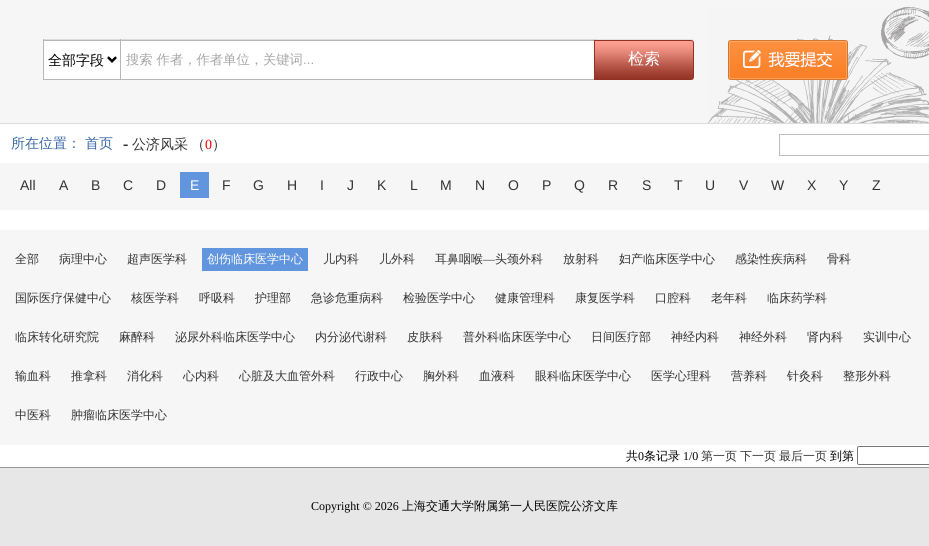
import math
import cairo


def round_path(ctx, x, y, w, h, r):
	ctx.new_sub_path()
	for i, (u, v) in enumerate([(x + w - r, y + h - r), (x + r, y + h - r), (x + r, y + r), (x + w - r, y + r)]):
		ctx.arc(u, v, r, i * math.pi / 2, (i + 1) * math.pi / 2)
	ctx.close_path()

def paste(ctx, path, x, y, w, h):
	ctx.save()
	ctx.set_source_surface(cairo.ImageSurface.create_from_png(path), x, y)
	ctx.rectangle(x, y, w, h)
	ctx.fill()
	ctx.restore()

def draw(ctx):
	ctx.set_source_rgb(0.961, 0.961, 0.961)
	ctx.paint()
	ctx.set_source_rgb(0.863, 0.863, 0.863)
	ctx.rectangle(0, 123, 929, 1)
	ctx.fill()
	paste(ctx, 'media/1.png', 708, 7, 221, 116)
	paste(ctx, 'media/2.png', 44, 39, 76, 41)
	ctx.set_source_rgb(0.718, 0.718, 0.718)
	ctx.rectangle(120, 39, 1, 41)
	ctx.fill()
	ctx.rectangle(43, 39, 1, 41)
	ctx.fill()
	ctx.new_path()
	ctx.move_to(108, 57.5)
	ctx.line_to(112, 61.5)
	ctx.line_to(116, 57.5)
	ctx.set_source_rgb(0, 0, 0)
	ctx.stroke()
	ctx.select_font_face('WenQuanYi Zen Hei Medium')
	ctx.set_font_size(14)
	ctx.move_to(48, 65)
	ctx.show_text('全部字段')
	paste(ctx, 'media/3.png', 121, 39, 473, 41)
	ctx.set_font_size(13.3)
	ctx.set_source_rgb(0.651, 0.651, 0.651)
	ctx.move_to(126, 64)
	ctx.show_text('搜索 作者，作者单位，关键词')
	ctx.select_font_face('Liberation Sans')
	ctx.move_to(303, 64)
	ctx.show_text('...')
	paste(ctx, 'media/4.png', 594, 39, 100, 41)
	ctx.select_font_face('WenQuanYi Zen Hei Medium')
	ctx.set_font_size(16)
	ctx.set_source_rgb(1, 1, 1)
	ctx.move_to(628, 64)
	ctx.show_text('检索')
	paste(ctx, 'media/5.png', 728, 40, 120, 40)
	ctx.rectangle(0, 124, 929, 343)
	ctx.fill()
	ctx.set_font_size(14)
	ctx.set_source_rgb(0.224, 0.404, 0.655)
	ctx.move_to(11, 148)
	ctx.show_text('所在位置：')
	ctx.move_to(85, 148)
	ctx.show_text('首页')
	ctx.select_font_face('Liberation Serif')
	ctx.set_font_size(16)
	ctx.set_source_rgb(0, 0, 0)
	ctx.move_to(123, 149)
	ctx.show_text('-')
	ctx.select_font_face('WenQuanYi Zen Hei Medium')
	ctx.set_font_size(14)
	ctx.set_source_rgb(0.2, 0.2, 0.2)
	ctx.move_to(132, 149)
	ctx.show_text('公济风采')
	ctx.move_to(191, 149)
	ctx.show_text('（')
	ctx.select_font_face('Liberation Serif')
	ctx.set_source_rgb(1, 0, 0)
	ctx.move_to(205, 149)
	ctx.show_text('0')
	ctx.select_font_face('WenQuanYi Zen Hei Medium')
	ctx.set_source_rgb(0.2, 0.2, 0.2)
	ctx.move_to(212, 149)
	ctx.show_text('）')
	ctx.rectangle(779.5, 134.5, 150, 21)
	ctx.set_source_rgb(0.741, 0.741, 0.741)
	ctx.set_line_width(1)
	ctx.stroke()
	ctx.set_source_rgb(0.961, 0.961, 0.961)
	ctx.rectangle(0, 163, 929, 47)
	ctx.fill()
	ctx.select_font_face('Liberation Sans')
	ctx.set_source_rgb(0.2, 0.2, 0.2)
	for x, y, s in [
		(20, 190, 'All'),
		(59, 190, 'A'),
		(91, 190, 'B'),
		(123, 190, 'C'),
		(156, 190, 'D'),
	]:
		ctx.move_to(x, y)
		ctx.show_text(s)
	ctx.set_source_rgb(0.38, 0.584, 0.871)
	ctx.rectangle(180, 172, 29, 26)
	ctx.fill()
	ctx.set_source_rgb(1, 1, 1)
	ctx.move_to(190, 190)
	ctx.show_text('E')
	ctx.set_source_rgb(0.2, 0.2, 0.2)
	for x, y, s in [
		(222, 190, 'F'),
		(253, 190, 'G'),
		(287, 190, 'H'),
		(320, 190, 'I'),
		(347, 190, 'J'),
		(377, 190, 'K'),
		(410, 190, 'L'),
		(440, 190, 'M'),
		(475, 190, 'N'),
		(508, 190, 'O'),
		(542, 190, 'P'),
		(574, 190, 'Q'),
		(608, 190, 'R'),
		(642, 190, 'S'),
		(674, 190, 'T'),
		(705, 190, 'U'),
		(739, 190, 'V'),
		(771, 190, 'W'),
		(807, 190, 'X'),
		(839, 190, 'Y'),
		(872, 190, 'Z'),
	]:
		ctx.move_to(x, y)
		ctx.show_text(s)
	ctx.set_source_rgb(0.961, 0.961, 0.961)
	ctx.rectangle(0, 230, 929, 215)
	ctx.fill()
	ctx.select_font_face('WenQuanYi Zen Hei Medium')
	ctx.set_font_size(12)
	ctx.set_source_rgb(0.2, 0.2, 0.2)
	for x, y, s in [
		(15, 263, '全部'),
		(59, 263, '病理中心'),
		(127, 263, '超声医学科'),
	]:
		ctx.move_to(x, y)
		ctx.show_text(s)
	ctx.set_source_rgb(0.38, 0.584, 0.871)
	ctx.rectangle(202, 248, 106, 23)
	ctx.fill()
	ctx.set_source_rgb(1, 1, 1)
	ctx.move_to(207, 263)
	ctx.show_text('创伤临床医学中心')
	ctx.set_source_rgb(0.2, 0.2, 0.2)
	for x, y, s in [
		(323, 263, '儿内科'),
		(379, 263, '儿外科'),
		(435, 263, '耳鼻咽喉'),
	]:
		ctx.move_to(x, y)
		ctx.show_text(s)
	ctx.select_font_face('Liberation Serif')
	ctx.move_to(483, 263)
	ctx.show_text('—')
	ctx.select_font_face('WenQuanYi Zen Hei Medium')
	for x, y, s in [
		(495, 263, '头颈外科'),
		(563, 263, '放射科'),
		(619, 263, '妇产临床医学中心'),
		(735, 263, '感染性疾病科'),
		(827, 263, '骨科'),
		(15, 302, '国际医疗保健中心'),
		(131, 302, '核医学科'),
		(199, 302, '呼吸科'),
		(255, 302, '护理部'),
		(311, 302, '急诊危重病科'),
		(403, 302, '检验医学中心'),
		(495, 302, '健康管理科'),
		(575, 302, '康复医学科'),
		(655, 302, '口腔科'),
		(711, 302, '老年科'),
		(767, 302, '临床药学科'),
		(15, 341, '临床转化研究院'),
		(119, 341, '麻醉科'),
		(175, 341, '泌尿外科临床医学中心'),
		(315, 341, '内分泌代谢科'),
		(407, 341, '皮肤科'),
		(463, 341, '普外科临床医学中心'),
		(591, 341, '日间医疗部'),
		(671, 341, '神经内科'),
		(739, 341, '神经外科'),
		(807, 341, '肾内科'),
		(863, 341, '实训中心'),
		(15, 380, '输血科'),
		(71, 380, '推拿科'),
		(127, 380, '消化科'),
		(183, 380, '心内科'),
		(239, 380, '心脏及大血管外科'),
		(355, 380, '行政中心'),
		(423, 380, '胸外科'),
		(479, 380, '血液科'),
		(535, 380, '眼科临床医学中心'),
		(651, 380, '医学心理科'),
		(731, 380, '营养科'),
		(787, 380, '针灸科'),
		(843, 380, '整形外科'),
		(15, 419, '中医科'),
		(71, 419, '肿瘤临床医学中心'),
	]:
		ctx.move_to(x, y)
		ctx.show_text(s)
	ctx.set_source_rgb(0, 0, 0)
	ctx.move_to(626, 460)
	ctx.show_text('共')
	ctx.select_font_face('Liberation Serif')
	ctx.move_to(638, 460)
	ctx.show_text('0')
	ctx.select_font_face('WenQuanYi Zen Hei Medium')
	ctx.move_to(644, 460)
	ctx.show_text('条记录')
	ctx.select_font_face('Liberation Serif')
	ctx.move_to(683, 460)
	ctx.show_text('1/0')
	ctx.select_font_face('WenQuanYi Zen Hei Medium')
	ctx.set_source_rgb(0.2, 0.2, 0.2)
	for x, y, s in [
		(701, 460, '第一页'),
		(740, 460, '下一页'),
		(779, 460, '最后一页'),
	]:
		ctx.move_to(x, y)
		ctx.show_text(s)
	ctx.set_source_rgb(0, 0, 0)
	ctx.move_to(830, 460)
	ctx.show_text('到第')
	round_path(ctx, 857.5, 446.5, 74, 18, 1.5)
	ctx.set_source_rgb(0.463, 0.463, 0.463)
	ctx.stroke()
	ctx.set_source_rgb(0.906, 0.906, 0.906)
	ctx.rectangle(0, 468, 929, 78)
	ctx.fill()
	ctx.set_source_rgb(0.6, 0.6, 0.6)
	ctx.rectangle(0, 467, 929, 1)
	ctx.fill()
	ctx.select_font_face('Liberation Serif')
	ctx.set_source_rgb(0, 0, 0)
	ctx.move_to(311, 510)
	ctx.show_text('Copyright © 2026')
	ctx.select_font_face('WenQuanYi Zen Hei Medium')
	ctx.move_to(402, 510)
	ctx.show_text('上海交通大学附属第一人民医院公济文库')


surface = cairo.ImageSurface(cairo.FORMAT_RGB24, 929, 546)
ctx = cairo.Context(surface)
options = cairo.FontOptions()
options.set_hint_metrics(cairo.HINT_METRICS_OFF)
options.set_hint_style(cairo.HINT_STYLE_NONE)
ctx.set_font_options(options)
ctx.set_miter_limit(4)
draw(ctx)
surface.write_to_png('image.png')
